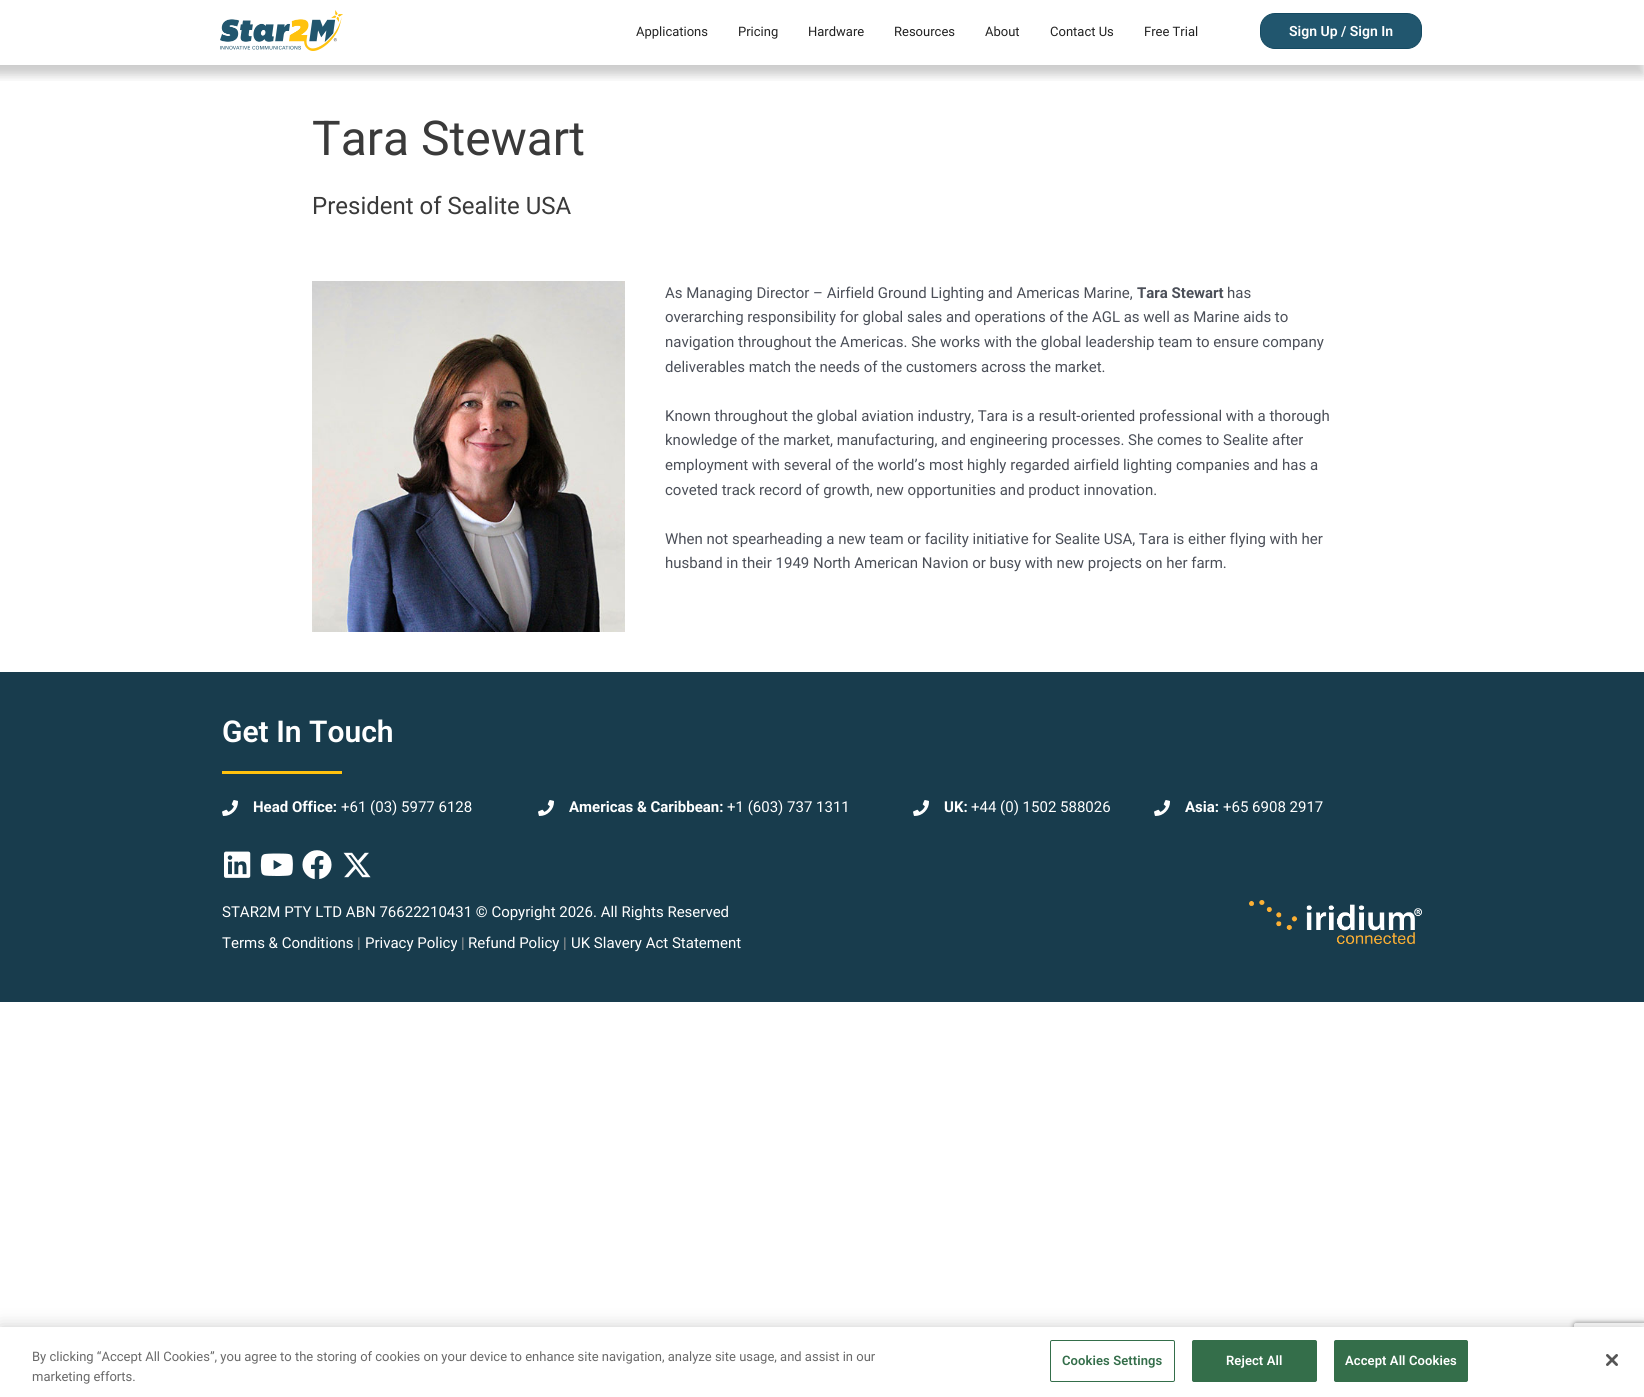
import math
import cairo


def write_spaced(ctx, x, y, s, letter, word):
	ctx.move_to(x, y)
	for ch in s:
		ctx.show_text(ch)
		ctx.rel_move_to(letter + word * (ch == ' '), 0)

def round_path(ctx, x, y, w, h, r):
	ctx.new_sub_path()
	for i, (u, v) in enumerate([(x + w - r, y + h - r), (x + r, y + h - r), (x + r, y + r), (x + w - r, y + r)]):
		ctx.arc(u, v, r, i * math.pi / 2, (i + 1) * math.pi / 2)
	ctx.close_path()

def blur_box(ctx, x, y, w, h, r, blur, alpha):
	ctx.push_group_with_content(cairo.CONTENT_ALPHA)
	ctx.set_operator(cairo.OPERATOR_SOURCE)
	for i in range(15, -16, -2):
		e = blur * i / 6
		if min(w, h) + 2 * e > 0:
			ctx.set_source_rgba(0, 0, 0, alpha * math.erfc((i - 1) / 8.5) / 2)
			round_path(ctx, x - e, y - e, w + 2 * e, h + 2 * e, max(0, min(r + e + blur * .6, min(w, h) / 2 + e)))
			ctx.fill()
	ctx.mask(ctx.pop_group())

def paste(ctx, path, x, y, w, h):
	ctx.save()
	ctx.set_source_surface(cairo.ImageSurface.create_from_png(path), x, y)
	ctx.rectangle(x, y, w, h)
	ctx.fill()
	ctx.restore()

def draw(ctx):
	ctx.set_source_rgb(1, 1, 1)
	ctx.paint()
	ctx.save()
	ctx.rectangle(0, 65, 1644, 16)
	ctx.clip()
	ctx.set_source_rgb(0, 0, 0)
	blur_box(ctx, -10, 0, 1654, 75, 0, 5, 0.2)
	ctx.restore()
	paste(ctx, 'media/1.png', 220, 10, 123, 41)
	ctx.select_font_face('Roboto')
	ctx.set_font_size(13)
	ctx.set_source_rgb(0.133, 0.133, 0.133)
	for x, y, s in [
		(636, 36, 'Applications'),
		(738, 36, 'Pricing'),
		(808, 36, 'Hardware'),
		(894, 36, 'Resources'),
		(985, 36, 'About'),
		(1050, 36, 'Contact Us'),
		(1144, 36, 'Free Trial'),
	]:
		ctx.move_to(x, y)
		ctx.show_text(s)
	ctx.set_source_rgb(0.129, 0.337, 0.431)
	round_path(ctx, 1260.5, 13.5, 161, 35, 14.5)
	ctx.fill_preserve()
	ctx.set_source_rgb(0.082, 0.29, 0.384)
	ctx.set_line_width(1)
	ctx.stroke()
	ctx.select_font_face('Roboto SemiBold')
	ctx.set_font_size(14)
	ctx.set_source_rgb(1, 1, 1)
	ctx.move_to(1289, 36)
	ctx.show_text('Sign Up / Sign In')
	ctx.select_font_face('Roboto')
	ctx.set_font_size(48)
	ctx.set_source_rgb(0.227, 0.227, 0.227)
	ctx.move_to(312, 155)
	ctx.show_text('Tara Stewart')
	ctx.set_font_size(24)
	ctx.move_to(312, 214)
	ctx.show_text('President of Sealite USA')
	paste(ctx, 'media/2.png', 312, 281, 313, 351)
	ctx.set_font_size(15)
	ctx.set_source_rgb(0.294, 0.31, 0.345)
	ctx.move_to(665, 298)
	ctx.show_text('As Managing Director – Airfield Ground Lighting and Americas Marine,')
	ctx.select_font_face('Roboto', cairo.FONT_SLANT_NORMAL, cairo.FONT_WEIGHT_BOLD)
	ctx.move_to(1137, 298)
	ctx.show_text('Tara Stewart')
	ctx.select_font_face('Roboto')
	for x, y, s in [
		(1227, 298, 'has'),
		(665, 322, 'overarching responsibility for global sales and operations of the AGL as well as Marine aids to'),
		(665, 347, 'navigation throughout the Americas. She works with the global leadership team to ensure company'),
		(665, 372, 'deliverables match the needs of the customers across the market.'),
		(665, 421, 'Known throughout the global aviation industry, Tara is a result-oriented professional with a thorough'),
		(665, 445, 'knowledge of the market, manufacturing, and engineering processes. She comes to Sealite after'),
		(665, 470, 'employment with several of the world’s most highly regarded airfield lighting companies and has a'),
		(665, 495, 'coveted track record of growth, new opportunities and product innovation.'),
		(665, 544, 'When not spearheading a new team or facility initiative for Sealite USA, Tara is either flying with her'),
		(665, 568, 'husband in their 1949 North American Navion or busy with new projects on her farm.'),
	]:
		ctx.move_to(x, y)
		ctx.show_text(s)
	ctx.set_source_rgb(0.094, 0.235, 0.302)
	ctx.rectangle(0, 672, 1644, 330)
	ctx.fill()
	ctx.select_font_face('Roboto SemiBold')
	ctx.set_font_size(30)
	ctx.set_source_rgb(1, 1, 1)
	ctx.move_to(222, 742)
	ctx.show_text('Get In Touch')
	ctx.set_source_rgb(1, 0.761, 0.055)
	ctx.rectangle(222, 771, 120, 3)
	ctx.fill()
	paste(ctx, 'media/3.png', 222, 800, 16, 16)
	ctx.select_font_face('Roboto', cairo.FONT_SLANT_NORMAL, cairo.FONT_WEIGHT_BOLD)
	ctx.set_font_size(15)
	ctx.set_source_rgb(1, 1, 1)
	ctx.move_to(253, 812)
	ctx.show_text('Head Office:')
	ctx.select_font_face('Roboto')
	ctx.move_to(341, 812)
	ctx.show_text('+61 (03) 5977 6128')
	paste(ctx, 'media/3.png', 538, 800, 16, 16)
	ctx.select_font_face('Roboto', cairo.FONT_SLANT_NORMAL, cairo.FONT_WEIGHT_BOLD)
	ctx.move_to(569, 812)
	ctx.show_text('Americas & Caribbean:')
	ctx.select_font_face('Roboto')
	ctx.move_to(727, 812)
	ctx.show_text('+1 (603) 737 1311')
	paste(ctx, 'media/3.png', 913, 800, 16, 16)
	ctx.select_font_face('Roboto', cairo.FONT_SLANT_NORMAL, cairo.FONT_WEIGHT_BOLD)
	ctx.move_to(944, 812)
	ctx.show_text('UK:')
	ctx.select_font_face('Roboto')
	ctx.move_to(971, 812)
	ctx.show_text('+44 (0) 1502 588026')
	paste(ctx, 'media/3.png', 1154, 800, 16, 16)
	ctx.select_font_face('Roboto', cairo.FONT_SLANT_NORMAL, cairo.FONT_WEIGHT_BOLD)
	ctx.move_to(1185, 812)
	ctx.show_text('Asia:')
	ctx.select_font_face('Roboto')
	ctx.move_to(1223, 812)
	ctx.show_text('+65 6908 2917')
	paste(ctx, 'media/4.png', 224, 851, 27, 27)
	paste(ctx, 'media/5.png', 260, 853, 33, 23)
	paste(ctx, 'media/6.png', 302, 850, 30, 29)
	paste(ctx, 'media/7.png', 343, 852, 28, 26)
	ctx.move_to(222, 917)
	ctx.show_text('STAR2M PTY LTD ABN 76622210431 © Copyright 2026. All Rights Reserved')
	ctx.move_to(222, 948)
	ctx.show_text('Terms & Conditions')
	ctx.set_source_rgb(0.6, 0.6, 0.6)
	ctx.move_to(357, 948)
	ctx.show_text('|')
	ctx.set_source_rgb(1, 1, 1)
	ctx.move_to(365, 948)
	ctx.show_text('Privacy Policy')
	ctx.set_source_rgb(0.6, 0.6, 0.6)
	ctx.move_to(461, 948)
	ctx.show_text('|')
	ctx.set_source_rgb(1, 1, 1)
	ctx.move_to(468, 948)
	ctx.show_text('Refund Policy')
	ctx.set_source_rgb(0.6, 0.6, 0.6)
	ctx.move_to(563, 948)
	ctx.show_text('|')
	ctx.set_source_rgb(1, 1, 1)
	ctx.move_to(571, 948)
	ctx.show_text('UK Slavery Act Statement')
	paste(ctx, 'media/8.png', 1249, 900, 173, 44)
	ctx.set_source_rgb(0, 0, 0)
	blur_box(ctx, 0, 1327, 1644, 70, 0, 9, 0.2)
	ctx.save()
	ctx.set_fill_rule(cairo.FILL_RULE_EVEN_ODD)
	ctx.new_path()
	ctx.move_to(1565, 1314)
	ctx.line_to(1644, 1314)
	ctx.line_to(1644, 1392)
	ctx.line_to(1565, 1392)
	ctx.close_path()
	ctx.move_to(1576, 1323)
	ctx.line_to(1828, 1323)
	ctx.curve_to(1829, 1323, 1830, 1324, 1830, 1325)
	ctx.line_to(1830, 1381)
	ctx.curve_to(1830, 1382, 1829, 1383, 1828, 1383)
	ctx.line_to(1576, 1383)
	ctx.curve_to(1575, 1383, 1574, 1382, 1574, 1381)
	ctx.line_to(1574, 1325)
	ctx.curve_to(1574, 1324, 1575, 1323, 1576, 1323)
	ctx.close_path()
	ctx.clip()
	ctx.set_source_rgb(0.502, 0.502, 0.502)
	blur_box(ctx, 1574, 1323, 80, 60, 2, 2.5, 1)
	ctx.restore()
	ctx.set_source_rgb(1, 1, 1)
	ctx.rectangle(0, 1327, 1644, 70)
	ctx.fill()
	ctx.set_font_size(13)
	ctx.set_source_rgb(0.412, 0.412, 0.412)
	ctx.move_to(32, 1361)
	ctx.show_text('By clicking “Accept All Cookies”, you agree to the storing of cookies on your device to enhance site navigation, analyze site usage, and assist in our')
	ctx.move_to(32, 1381)
	ctx.show_text('marketing efforts.')
	round_path(ctx, 1050.5, 1340.5, 124, 41, 1.5)
	ctx.set_source_rgb(0.204, 0.431, 0.29)
	ctx.stroke()
	ctx.select_font_face('Roboto SemiBold')
	write_spaced(ctx, 1062, 1365, 'Cookies Settings', 0.1, 0)
	round_path(ctx, 1192.5, 1340.5, 124, 41, 1.5)
	ctx.fill_preserve()
	ctx.stroke()
	ctx.set_source_rgb(1, 1, 1)
	write_spaced(ctx, 1226, 1365, 'Reject All', 0.1, 0)
	ctx.set_source_rgb(0.204, 0.431, 0.29)
	round_path(ctx, 1334.5, 1340.5, 133, 41, 1.5)
	ctx.fill_preserve()
	ctx.stroke()
	ctx.set_source_rgb(1, 1, 1)
	write_spaced(ctx, 1345, 1365, 'Accept All Cookies', 0.1, 0)
	paste(ctx, 'media/9.png', 1606, 1354, 12, 12)


surface = cairo.ImageSurface(cairo.FORMAT_RGB24, 1644, 1397)
ctx = cairo.Context(surface)
options = cairo.FontOptions()
options.set_hint_metrics(cairo.HINT_METRICS_OFF)
options.set_hint_style(cairo.HINT_STYLE_NONE)
ctx.set_font_options(options)
ctx.set_miter_limit(4)
draw(ctx)
surface.write_to_png('image.png')
